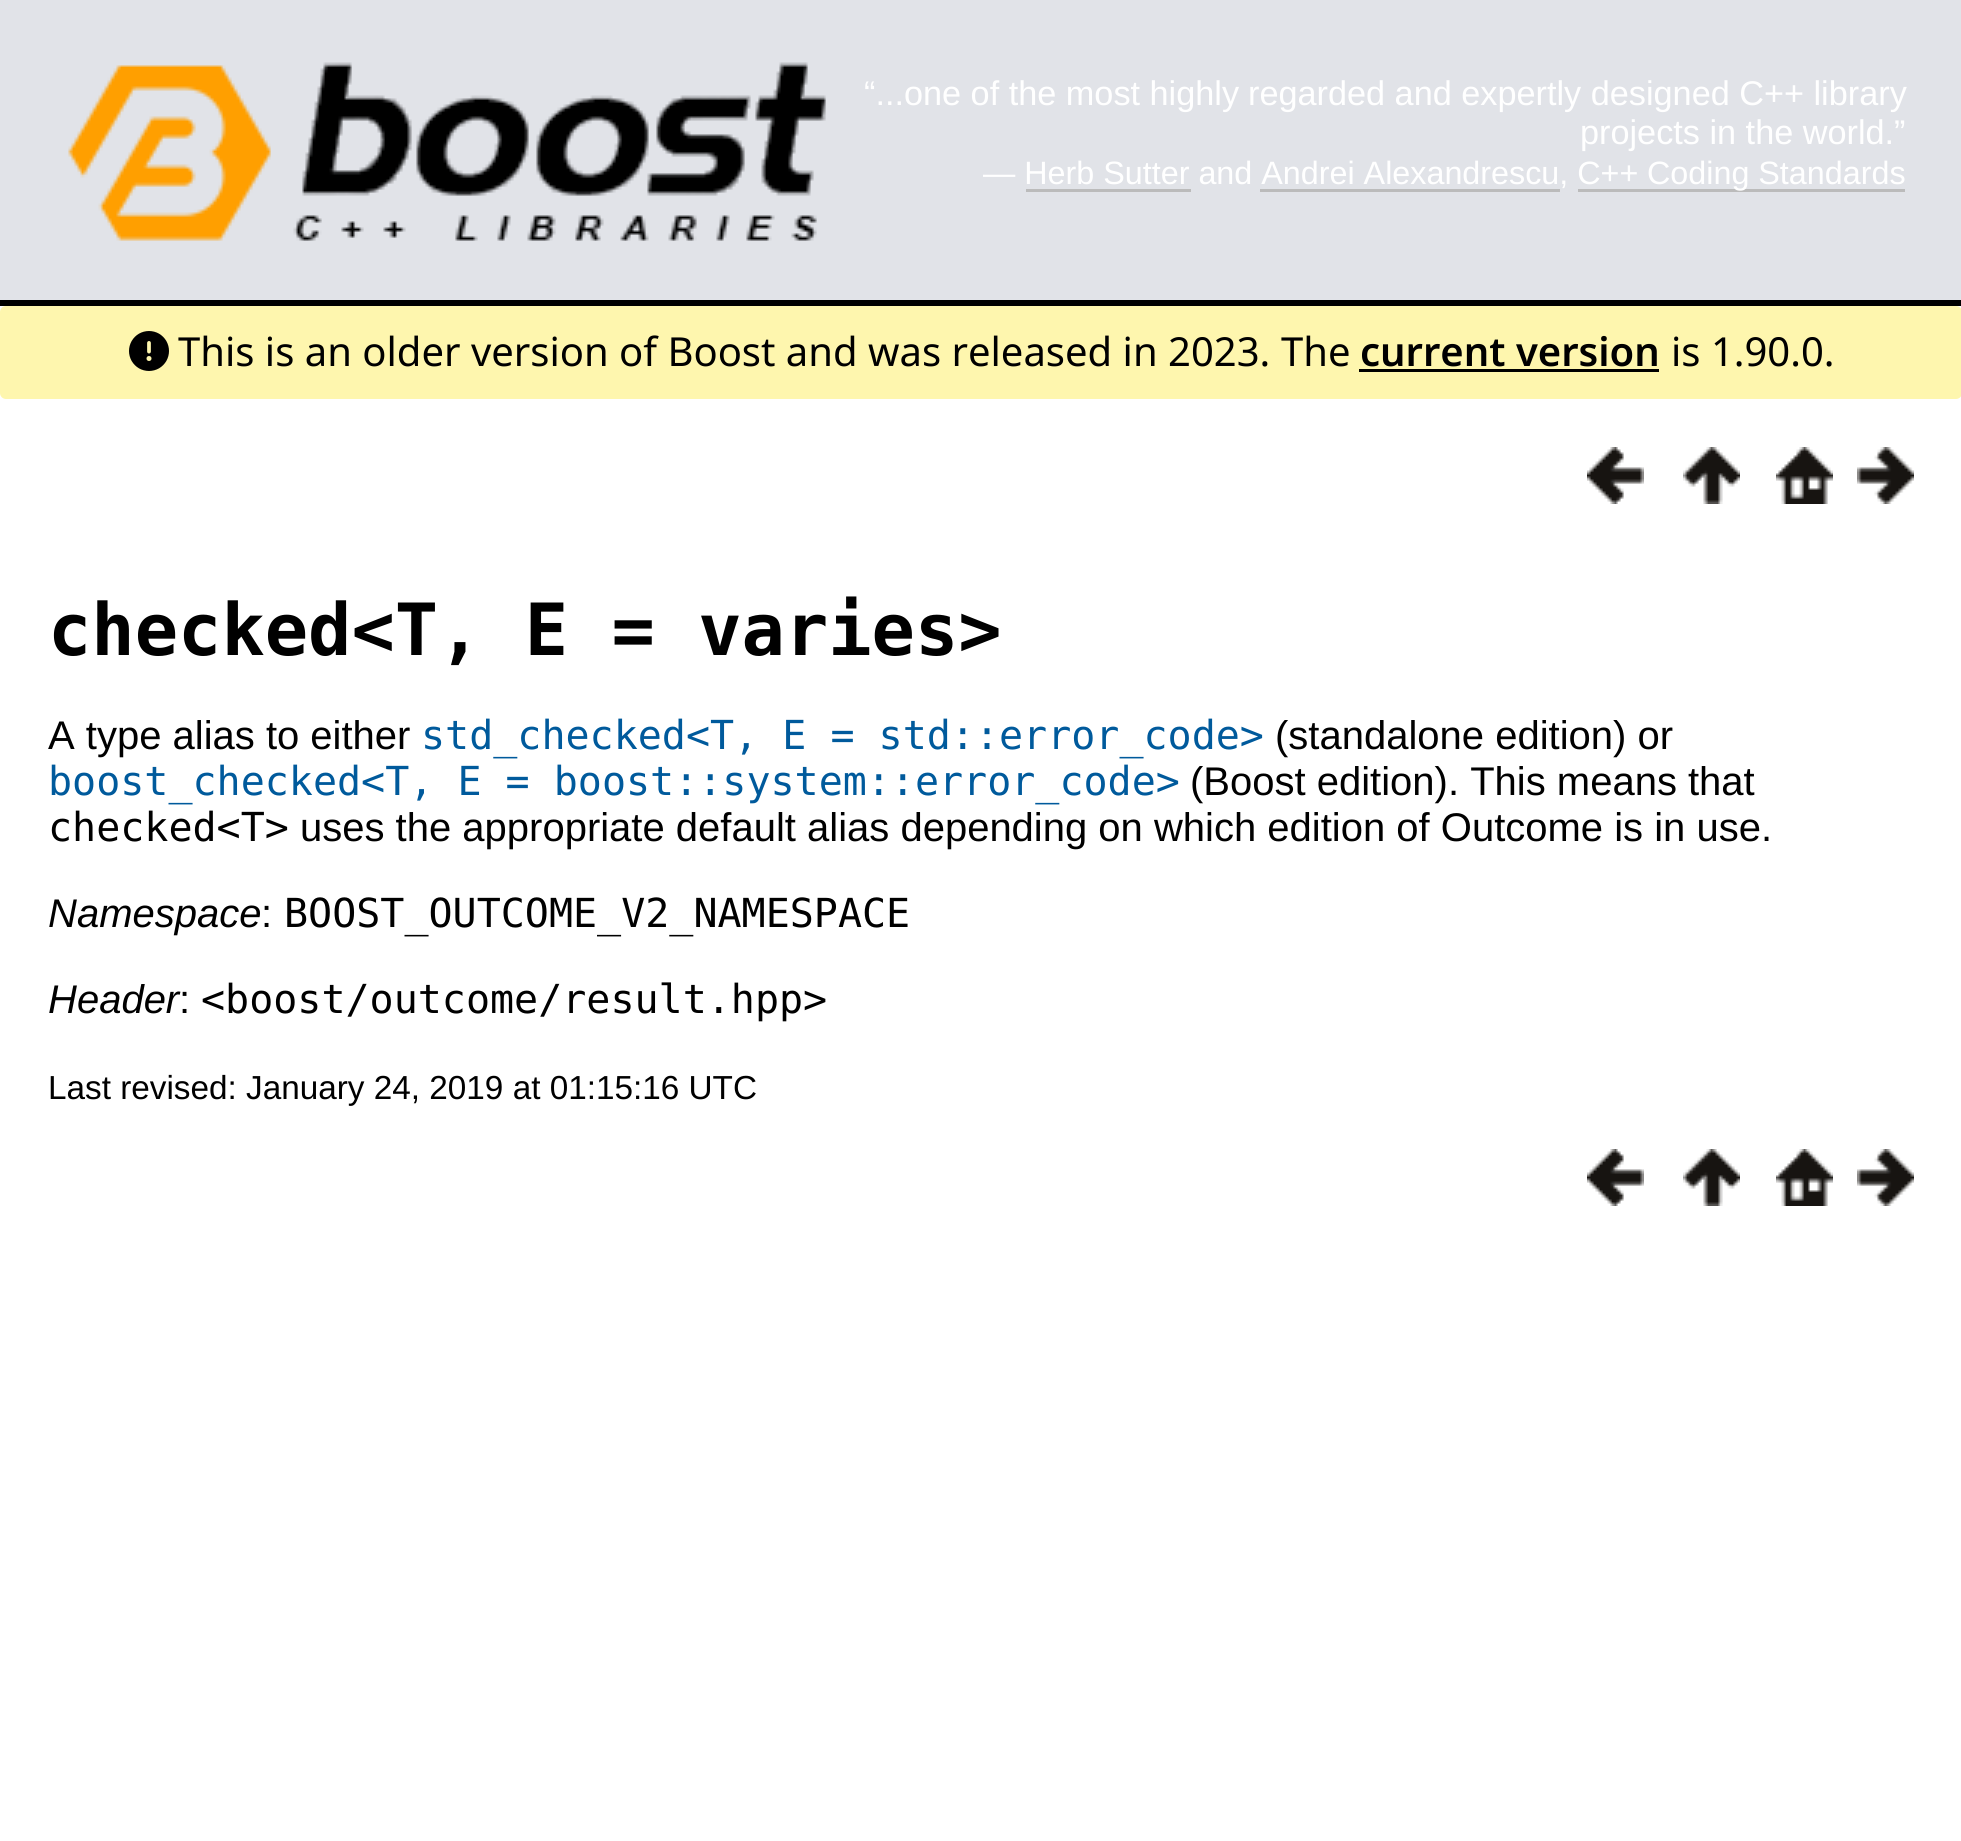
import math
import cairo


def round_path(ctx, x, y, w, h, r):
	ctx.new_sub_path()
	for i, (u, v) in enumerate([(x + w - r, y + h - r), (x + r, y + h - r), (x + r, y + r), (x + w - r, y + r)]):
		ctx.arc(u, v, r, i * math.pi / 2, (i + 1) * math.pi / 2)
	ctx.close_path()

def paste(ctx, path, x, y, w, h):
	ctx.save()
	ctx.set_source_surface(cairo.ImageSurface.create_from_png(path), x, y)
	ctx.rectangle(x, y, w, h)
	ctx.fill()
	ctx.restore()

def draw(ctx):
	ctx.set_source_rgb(1, 1, 1)
	ctx.paint()
	ctx.set_source_rgb(0.882, 0.89, 0.91)
	ctx.rectangle(0, 0, 1961, 300)
	ctx.fill()
	ctx.set_source_rgb(0, 0, 0)
	ctx.rectangle(0, 300, 1961, 6)
	ctx.fill()
	paste(ctx, 'media/1.png', 68, 62, 758, 179)
	ctx.select_font_face('Liberation Sans')
	ctx.set_font_size(34.25)
	ctx.set_source_rgb(1, 1, 1)
	for x, y, s in [
		(864, 105, '“...one of the most highly'),
		(1248, 105, 'regarded and expertly designed C++ library'),
		(1580, 144, 'projects in the world.”'),
	]:
		ctx.move_to(x, y)
		ctx.show_text(s)
	ctx.set_font_size(32.3)
	ctx.move_to(983, 184)
	ctx.show_text('— Herb Sutter and Andrei Alexandrescu, C++')
	ctx.set_source_rgb(0.733, 0.733, 0.733)
	ctx.rectangle(1578, 189, 327, 3)
	ctx.fill()
	ctx.set_source_rgb(1, 1, 1)
	ctx.move_to(1647, 184)
	ctx.show_text('Coding Standards')
	ctx.set_source_rgb(0.733, 0.733, 0.733)
	ctx.rectangle(1026, 189, 165, 3)
	ctx.fill()
	ctx.rectangle(1260, 189, 300, 3)
	ctx.fill()
	ctx.set_source_rgb(0.996, 0.961, 0.682)
	round_path(ctx, 0, 306, 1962, 93, 6)
	ctx.fill()
	paste(ctx, 'media/2.png', 129, 331, 40, 40)
	ctx.select_font_face('Noto Sans')
	ctx.set_font_size(40)
	ctx.set_source_rgb(0, 0, 0)
	ctx.move_to(178, 366)
	ctx.show_text('This is an older version of Boost and was released in 2023.')
	ctx.move_to(1281, 366)
	ctx.show_text('The')
	ctx.select_font_face('Noto Sans SemiBold')
	ctx.move_to(1360, 366)
	ctx.show_text('current version')
	ctx.rectangle(1359, 369, 300, 3)
	ctx.fill()
	ctx.select_font_face('Noto Sans')
	ctx.move_to(1671, 366)
	ctx.show_text('is 1.90.0.')
	paste(ctx, 'media/3.png', 1587, 447, 57, 57)
	paste(ctx, 'media/4.png', 1683, 447, 57, 57)
	paste(ctx, 'media/5.png', 1776, 447, 57, 57)
	paste(ctx, 'media/6.png', 1857, 447, 57, 57)
	ctx.select_font_face('DejaVu Sans Mono', cairo.FONT_SLANT_NORMAL, cairo.FONT_WEIGHT_BOLD)
	ctx.set_font_size(72)
	ctx.move_to(48, 655)
	ctx.show_text('checked<T, E = varies>')
	ctx.select_font_face('Liberation Sans')
	ctx.set_font_size(40)
	ctx.move_to(48, 749)
	ctx.show_text('A type alias to either')
	ctx.select_font_face('DejaVu Sans Mono')
	ctx.set_source_rgb(0, 0.353, 0.612)
	ctx.move_to(421, 749)
	ctx.show_text('std_checked<T, E = std::error_code>')
	ctx.select_font_face('Liberation Sans')
	ctx.set_source_rgb(0, 0, 0)
	ctx.move_to(1275, 749)
	ctx.show_text('(standalone edition) or')
	ctx.select_font_face('DejaVu Sans Mono')
	ctx.set_source_rgb(0, 0.353, 0.612)
	ctx.move_to(48, 795)
	ctx.show_text('boost_checked<T, E = boost::system::error_code>')
	ctx.select_font_face('Liberation Sans')
	ctx.set_source_rgb(0, 0, 0)
	ctx.move_to(1190, 795)
	ctx.show_text('(Boost edition). This means that')
	ctx.select_font_face('DejaVu Sans Mono')
	ctx.move_to(48, 841)
	ctx.show_text('checked<T>')
	ctx.select_font_face('Liberation Sans')
	ctx.move_to(300, 841)
	ctx.show_text('uses the appropriate default alias depending on which edition of Outcome is in use.')
	ctx.select_font_face('Liberation Sans', cairo.FONT_SLANT_ITALIC)
	ctx.move_to(48, 927)
	ctx.show_text('Namespace')
	ctx.select_font_face('Liberation Sans')
	ctx.move_to(261, 927)
	ctx.show_text(':')
	ctx.select_font_face('DejaVu Sans Mono')
	ctx.move_to(284, 927)
	ctx.show_text('BOOST_OUTCOME_V2_NAMESPACE')
	ctx.select_font_face('Liberation Sans', cairo.FONT_SLANT_ITALIC)
	ctx.move_to(48, 1013)
	ctx.show_text('Header')
	ctx.select_font_face('Liberation Sans')
	ctx.move_to(179, 1013)
	ctx.show_text(':')
	ctx.select_font_face('DejaVu Sans Mono')
	ctx.move_to(201, 1013)
	ctx.show_text('<boost/outcome/result.hpp>')
	ctx.select_font_face('Liberation Sans')
	ctx.set_font_size(33.3)
	ctx.move_to(48, 1099)
	ctx.show_text('Last revised: January 24, 2019 at 01:15:16 UTC')
	paste(ctx, 'media/3.png', 1587, 1149, 57, 57)
	paste(ctx, 'media/4.png', 1683, 1149, 57, 57)
	paste(ctx, 'media/5.png', 1776, 1149, 57, 57)
	paste(ctx, 'media/6.png', 1857, 1149, 57, 57)


surface = cairo.ImageSurface(cairo.FORMAT_RGB24, 1961, 1841)
ctx = cairo.Context(surface)
options = cairo.FontOptions()
options.set_hint_metrics(cairo.HINT_METRICS_OFF)
options.set_hint_style(cairo.HINT_STYLE_NONE)
ctx.set_font_options(options)
ctx.set_miter_limit(4)
draw(ctx)
surface.write_to_png('image.png')
